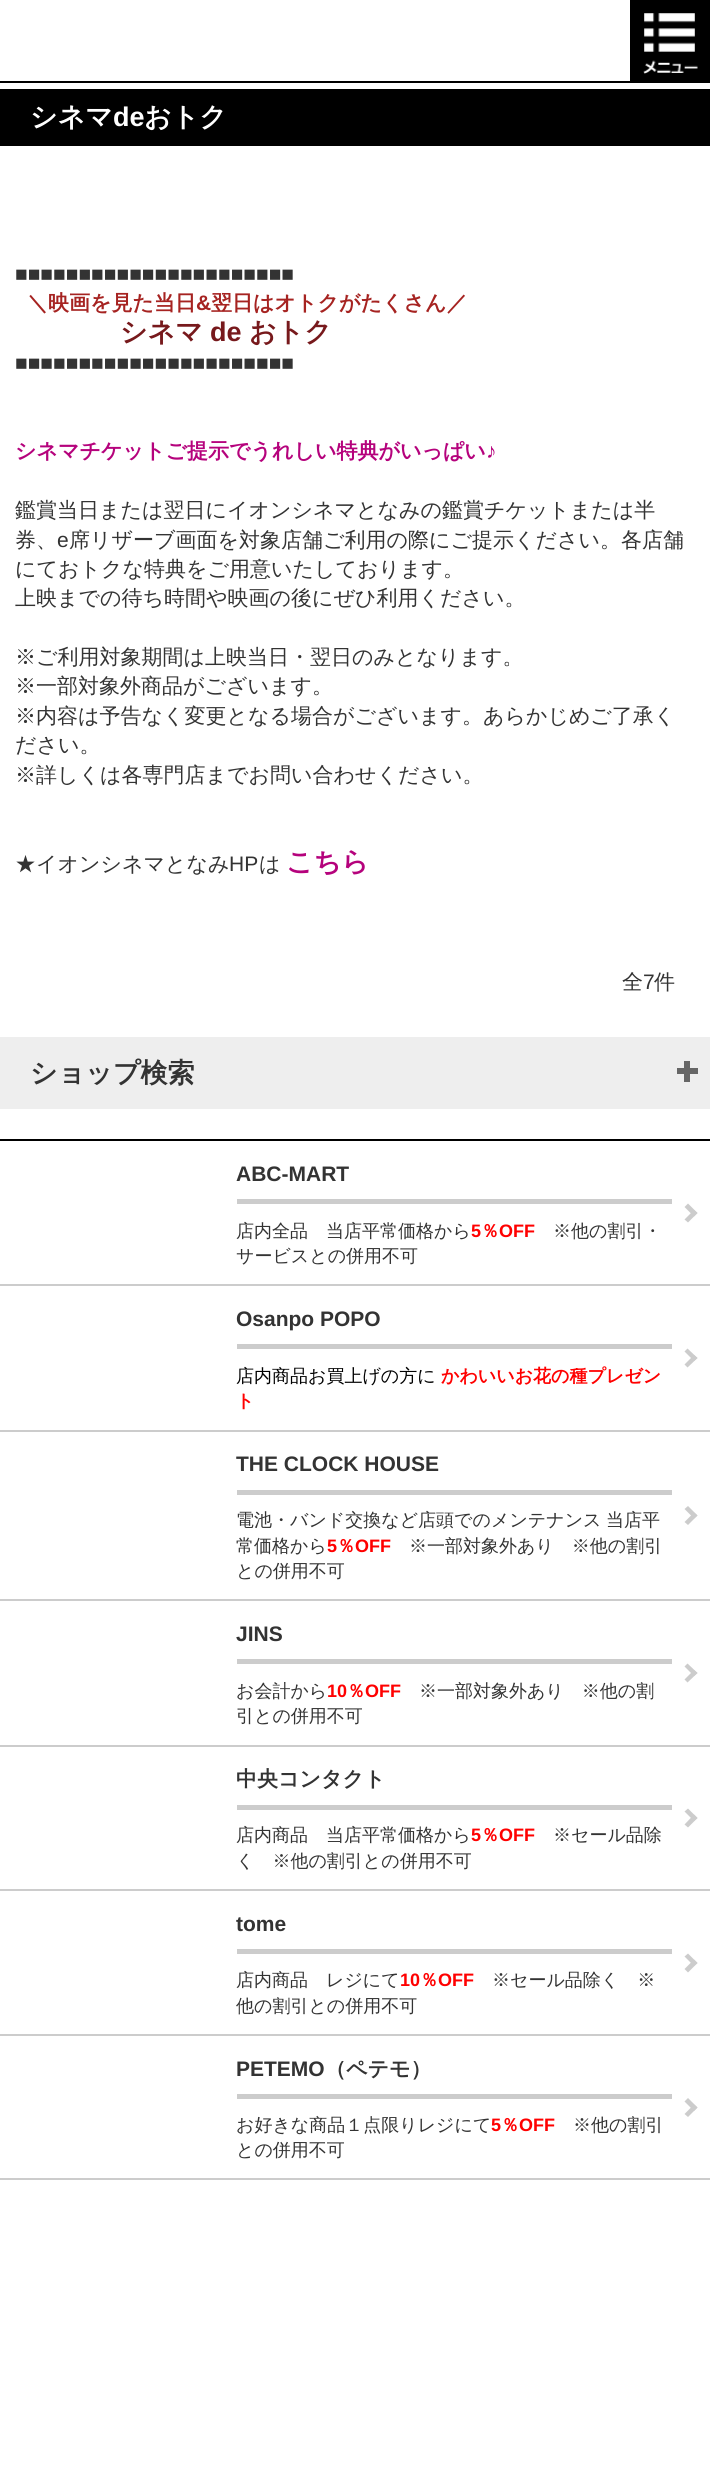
import math
import cairo


def write_spaced(ctx, x, y, s, letter, word):
	ctx.move_to(x, y)
	for ch in s:
		ctx.show_text(ch)
		ctx.rel_move_to(letter + word * (ch == ' '), 0)

def paste(ctx, path, x, y, w, h):
	ctx.save()
	ctx.set_source_surface(cairo.ImageSurface.create_from_png(path), x, y)
	ctx.rectangle(x, y, w, h)
	ctx.fill()
	ctx.restore()

def draw(ctx):
	ctx.set_source_rgb(1, 1, 1)
	ctx.paint()
	ctx.set_source_rgb(0, 0, 0)
	ctx.rectangle(0, 81, 710, 2)
	ctx.fill()
	paste(ctx, 'media/1.png', 630, 0, 80, 81)
	ctx.rectangle(0, 89, 710, 57)
	ctx.fill()
	ctx.select_font_face('WenQuanYi Zen Hei', cairo.FONT_SLANT_NORMAL, cairo.FONT_WEIGHT_BOLD)
	ctx.set_font_size(27)
	ctx.set_source_rgb(1, 1, 1)
	ctx.move_to(30, 126)
	ctx.show_text('シネマ')
	ctx.select_font_face('Liberation Sans', cairo.FONT_SLANT_NORMAL, cairo.FONT_WEIGHT_BOLD)
	ctx.move_to(113, 126)
	ctx.show_text('de')
	ctx.select_font_face('WenQuanYi Zen Hei', cairo.FONT_SLANT_NORMAL, cairo.FONT_WEIGHT_BOLD)
	ctx.move_to(144, 126)
	ctx.show_text('おトク')
	ctx.select_font_face('Liberation Sans')
	ctx.set_font_size(21)
	ctx.set_source_rgb(0.2, 0.2, 0.2)
	ctx.move_to(15, 281)
	ctx.show_text('■■■■■■■■■■■■■■■■■■■■■■')
	ctx.select_font_face('WenQuanYi Zen Hei', cairo.FONT_SLANT_NORMAL, cairo.FONT_WEIGHT_BOLD)
	ctx.set_source_rgb(0.651, 0.137, 0.129)
	ctx.move_to(27, 310)
	ctx.show_text('＼映画を見た当日')
	ctx.select_font_face('Liberation Sans', cairo.FONT_SLANT_NORMAL, cairo.FONT_WEIGHT_BOLD)
	ctx.move_to(196, 310)
	ctx.show_text('&')
	ctx.select_font_face('WenQuanYi Zen Hei', cairo.FONT_SLANT_NORMAL, cairo.FONT_WEIGHT_BOLD)
	ctx.move_to(211, 310)
	ctx.show_text('翌日はオトクがたくさん／')
	ctx.set_font_size(27)
	ctx.set_source_rgb(0.467, 0.098, 0.11)
	ctx.move_to(120, 341)
	ctx.show_text('シネマ')
	ctx.select_font_face('Liberation Sans', cairo.FONT_SLANT_NORMAL, cairo.FONT_WEIGHT_BOLD)
	ctx.move_to(210, 341)
	ctx.show_text('de')
	ctx.select_font_face('WenQuanYi Zen Hei', cairo.FONT_SLANT_NORMAL, cairo.FONT_WEIGHT_BOLD)
	ctx.move_to(249, 341)
	ctx.show_text('おトク')
	ctx.select_font_face('Liberation Sans')
	ctx.set_font_size(21)
	ctx.set_source_rgb(0.2, 0.2, 0.2)
	ctx.move_to(15, 370)
	ctx.show_text('■■■■■■■■■■■■■■■■■■■■■■')
	ctx.select_font_face('WenQuanYi Zen Hei', cairo.FONT_SLANT_NORMAL, cairo.FONT_WEIGHT_BOLD)
	ctx.set_source_rgb(0.71, 0.008, 0.486)
	ctx.move_to(15, 458)
	ctx.show_text('シネマチケットご提示でうれしい特典がいっぱい')
	ctx.select_font_face('Liberation Sans', cairo.FONT_SLANT_NORMAL, cairo.FONT_WEIGHT_BOLD)
	ctx.move_to(486, 458)
	ctx.show_text('♪')
	ctx.select_font_face('WenQuanYi Zen Hei Medium')
	ctx.set_source_rgb(0.2, 0.2, 0.2)
	ctx.move_to(15, 517)
	ctx.show_text('鑑賞当日または翌日にイオンシネマとなみの鑑賞チケットまたは半')
	ctx.move_to(15, 547)
	ctx.show_text('券、')
	ctx.select_font_face('Liberation Sans')
	ctx.move_to(57, 547)
	ctx.show_text('e')
	ctx.select_font_face('WenQuanYi Zen Hei Medium')
	for x, y, s in [
		(69, 547, '席リザーブ画面を対象店舗ご利用の際にご提示ください。各店舗'),
		(15, 576, 'にておトクな特典をご用意いたしております。'),
		(15, 605, '上映までの待ち時間や映画の後にぜひ利用ください。'),
		(15, 664, '※ご利用対象期間は上映当日・翌日のみとなります。'),
		(15, 693, '※一部対象外商品がございます。'),
		(15, 723, '※内容は予告なく変更となる場合がございます。あらかじめご了承く'),
		(15, 752, 'ださい。'),
		(15, 782, '※詳しくは各専門店までお問い合わせください。'),
		(15, 871, '★イオンシネマとなみ'),
	]:
		ctx.move_to(x, y)
		ctx.show_text(s)
	ctx.select_font_face('Liberation Sans')
	ctx.move_to(229, 871)
	ctx.show_text('HP')
	ctx.select_font_face('WenQuanYi Zen Hei Medium')
	ctx.move_to(259, 871)
	ctx.show_text('は')
	ctx.select_font_face('WenQuanYi Zen Hei', cairo.FONT_SLANT_NORMAL, cairo.FONT_WEIGHT_BOLD)
	ctx.set_font_size(27)
	ctx.set_source_rgb(0.71, 0.008, 0.486)
	ctx.move_to(286, 871)
	ctx.show_text('こちら')
	ctx.select_font_face('WenQuanYi Zen Hei Medium')
	ctx.set_font_size(21)
	ctx.set_source_rgb(0.2, 0.2, 0.2)
	ctx.move_to(622, 989)
	ctx.show_text('全')
	ctx.select_font_face('Liberation Sans')
	ctx.move_to(643, 989)
	ctx.show_text('7')
	ctx.select_font_face('WenQuanYi Zen Hei Medium')
	ctx.move_to(654, 989)
	ctx.show_text('件')
	ctx.set_source_rgb(0.933, 0.933, 0.933)
	ctx.rectangle(0, 1037, 710, 72)
	ctx.fill()
	ctx.select_font_face('WenQuanYi Zen Hei', cairo.FONT_SLANT_NORMAL, cairo.FONT_WEIGHT_BOLD)
	ctx.set_font_size(27)
	ctx.set_source_rgb(0.2, 0.2, 0.2)
	ctx.move_to(30, 1082)
	ctx.show_text('ショップ検索')
	ctx.set_source_rgb(0.4, 0.4, 0.4)
	ctx.rectangle(677, 1068, 21, 6)
	ctx.rectangle(684, 1061, 6, 21)
	ctx.fill()
	ctx.set_source_rgb(0, 0, 0)
	ctx.rectangle(0, 1139, 710, 2)
	ctx.fill()
	ctx.set_source_rgb(0.8, 0.8, 0.8)
	ctx.rectangle(0, 1284, 710, 2)
	ctx.fill()
	ctx.select_font_face('Liberation Sans', cairo.FONT_SLANT_NORMAL, cairo.FONT_WEIGHT_BOLD)
	ctx.set_font_size(21)
	ctx.set_source_rgb(0.2, 0.2, 0.2)
	ctx.move_to(236, 1181)
	ctx.show_text('ABC-MART')
	ctx.set_source_rgb(0.8, 0.8, 0.8)
	ctx.rectangle(237, 1199, 435, 5)
	ctx.fill()
	ctx.select_font_face('WenQuanYi Zen Hei Medium')
	ctx.set_font_size(18)
	ctx.set_source_rgb(0.2, 0.2, 0.2)
	ctx.move_to(236, 1237)
	ctx.show_text('店内全品　当店平常価格から')
	ctx.select_font_face('Liberation Sans', cairo.FONT_SLANT_NORMAL, cairo.FONT_WEIGHT_BOLD)
	ctx.set_source_rgb(1, 0, 0)
	ctx.move_to(471, 1237)
	ctx.show_text('5')
	ctx.select_font_face('WenQuanYi Zen Hei', cairo.FONT_SLANT_NORMAL, cairo.FONT_WEIGHT_BOLD)
	ctx.move_to(481, 1237)
	ctx.show_text('％')
	ctx.select_font_face('Liberation Sans', cairo.FONT_SLANT_NORMAL, cairo.FONT_WEIGHT_BOLD)
	ctx.move_to(499, 1237)
	ctx.show_text('OFF')
	ctx.select_font_face('WenQuanYi Zen Hei Medium')
	ctx.set_source_rgb(0.2, 0.2, 0.2)
	ctx.move_to(553, 1237)
	ctx.show_text('※他の割引・')
	ctx.move_to(236, 1262)
	ctx.show_text('サービスとの併用不可')
	ctx.set_source_rgb(0.8, 0.8, 0.8)
	ctx.new_path()
	ctx.move_to(688, 1203.5)
	ctx.line_to(697.5, 1213)
	ctx.line_to(694, 1216.5)
	ctx.line_to(684.5, 1207)
	ctx.close_path()
	ctx.fill()
	ctx.new_path()
	ctx.move_to(694, 1210)
	ctx.line_to(697.5, 1213)
	ctx.line_to(688, 1222.5)
	ctx.line_to(684.5, 1219.5)
	ctx.close_path()
	ctx.fill()
	ctx.rectangle(0, 1430, 710, 2)
	ctx.fill()
	ctx.select_font_face('Liberation Sans', cairo.FONT_SLANT_NORMAL, cairo.FONT_WEIGHT_BOLD)
	ctx.set_font_size(21)
	ctx.set_source_rgb(0.2, 0.2, 0.2)
	ctx.move_to(236, 1326)
	ctx.show_text('Osanpo POPO')
	ctx.set_source_rgb(0.8, 0.8, 0.8)
	ctx.rectangle(237, 1344, 435, 5)
	ctx.fill()
	ctx.select_font_face('WenQuanYi Zen Hei Medium')
	ctx.set_font_size(18)
	ctx.set_source_rgb(0, 0, 0)
	ctx.move_to(236, 1382)
	ctx.show_text('店内商品お買上げの方に')
	ctx.select_font_face('WenQuanYi Zen Hei', cairo.FONT_SLANT_NORMAL, cairo.FONT_WEIGHT_BOLD)
	ctx.set_source_rgb(1, 0, 0)
	ctx.move_to(441, 1382)
	ctx.show_text('かわいいお花の種プレゼン')
	ctx.move_to(236, 1407)
	ctx.show_text('ト')
	ctx.set_source_rgb(0.8, 0.8, 0.8)
	ctx.new_path()
	ctx.move_to(687.5, 1348.5)
	ctx.line_to(697.5, 1358)
	ctx.line_to(694, 1361)
	ctx.line_to(684.5, 1351.5)
	ctx.close_path()
	ctx.fill()
	ctx.new_path()
	ctx.move_to(694, 1355)
	ctx.line_to(697.5, 1358)
	ctx.line_to(687.5, 1367.5)
	ctx.line_to(684.5, 1364.5)
	ctx.close_path()
	ctx.fill()
	ctx.rectangle(0, 1599, 710, 2)
	ctx.fill()
	ctx.select_font_face('Liberation Sans', cairo.FONT_SLANT_NORMAL, cairo.FONT_WEIGHT_BOLD)
	ctx.set_font_size(21)
	ctx.set_source_rgb(0.2, 0.2, 0.2)
	ctx.move_to(236, 1471)
	ctx.show_text('THE CLOCK HOUSE')
	ctx.set_source_rgb(0.8, 0.8, 0.8)
	ctx.rectangle(237, 1490, 435, 5)
	ctx.fill()
	ctx.select_font_face('WenQuanYi Zen Hei Medium')
	ctx.set_font_size(18)
	ctx.set_source_rgb(0.2, 0.2, 0.2)
	write_spaced(ctx, 236, 1526, '電池・バンド交換など店頭でのメンテナンス 当店平', 0, -1)
	ctx.move_to(236, 1552)
	ctx.show_text('常価格から')
	ctx.select_font_face('Liberation Sans', cairo.FONT_SLANT_NORMAL, cairo.FONT_WEIGHT_BOLD)
	ctx.set_source_rgb(1, 0, 0)
	ctx.move_to(327, 1552)
	ctx.show_text('5')
	ctx.select_font_face('WenQuanYi Zen Hei', cairo.FONT_SLANT_NORMAL, cairo.FONT_WEIGHT_BOLD)
	ctx.move_to(337, 1552)
	ctx.show_text('％')
	ctx.select_font_face('Liberation Sans', cairo.FONT_SLANT_NORMAL, cairo.FONT_WEIGHT_BOLD)
	ctx.move_to(355, 1552)
	ctx.show_text('OFF')
	ctx.select_font_face('WenQuanYi Zen Hei Medium')
	ctx.set_source_rgb(0.2, 0.2, 0.2)
	ctx.move_to(409, 1552)
	ctx.show_text('※一部対象外あり　※他の割引')
	ctx.move_to(236, 1577)
	ctx.show_text('との併用不可')
	ctx.set_source_rgb(0.8, 0.8, 0.8)
	ctx.new_path()
	ctx.move_to(688, 1506)
	ctx.line_to(697.5, 1515.5)
	ctx.line_to(694, 1518.5)
	ctx.line_to(684.5, 1509)
	ctx.close_path()
	ctx.fill()
	ctx.new_path()
	ctx.move_to(694, 1512.5)
	ctx.line_to(697.5, 1515.5)
	ctx.line_to(688, 1525)
	ctx.line_to(684.5, 1522)
	ctx.close_path()
	ctx.fill()
	ctx.rectangle(0, 1745, 710, 2)
	ctx.fill()
	ctx.select_font_face('Liberation Sans', cairo.FONT_SLANT_NORMAL, cairo.FONT_WEIGHT_BOLD)
	ctx.set_font_size(21)
	ctx.set_source_rgb(0.2, 0.2, 0.2)
	ctx.move_to(236, 1641)
	ctx.show_text('JINS')
	ctx.set_source_rgb(0.8, 0.8, 0.8)
	ctx.rectangle(237, 1659, 435, 5)
	ctx.fill()
	ctx.select_font_face('WenQuanYi Zen Hei Medium')
	ctx.set_font_size(18)
	ctx.set_source_rgb(0.2, 0.2, 0.2)
	ctx.move_to(236, 1697)
	ctx.show_text('お会計から')
	ctx.select_font_face('Liberation Sans', cairo.FONT_SLANT_NORMAL, cairo.FONT_WEIGHT_BOLD)
	ctx.set_source_rgb(1, 0, 0)
	ctx.move_to(327, 1697)
	ctx.show_text('10')
	ctx.select_font_face('WenQuanYi Zen Hei', cairo.FONT_SLANT_NORMAL, cairo.FONT_WEIGHT_BOLD)
	ctx.move_to(347, 1697)
	ctx.show_text('％')
	ctx.select_font_face('Liberation Sans', cairo.FONT_SLANT_NORMAL, cairo.FONT_WEIGHT_BOLD)
	ctx.move_to(365, 1697)
	ctx.show_text('OFF')
	ctx.select_font_face('WenQuanYi Zen Hei Medium')
	ctx.set_source_rgb(0.2, 0.2, 0.2)
	ctx.move_to(419, 1697)
	ctx.show_text('※一部対象外あり　※他の割')
	ctx.move_to(236, 1722)
	ctx.show_text('引との併用不可')
	ctx.set_source_rgb(0.8, 0.8, 0.8)
	ctx.new_path()
	ctx.move_to(687.5, 1663.5)
	ctx.line_to(697.5, 1673)
	ctx.line_to(694, 1676)
	ctx.line_to(684.5, 1666.5)
	ctx.close_path()
	ctx.fill()
	ctx.new_path()
	ctx.move_to(694, 1670)
	ctx.line_to(697.5, 1673)
	ctx.line_to(687.5, 1682.5)
	ctx.line_to(684.5, 1679.5)
	ctx.close_path()
	ctx.fill()
	ctx.rectangle(0, 1889, 710, 2)
	ctx.fill()
	ctx.select_font_face('WenQuanYi Zen Hei', cairo.FONT_SLANT_NORMAL, cairo.FONT_WEIGHT_BOLD)
	ctx.set_font_size(21)
	ctx.set_source_rgb(0.2, 0.2, 0.2)
	ctx.move_to(236, 1786)
	ctx.show_text('中央コンタクト')
	ctx.set_source_rgb(0.8, 0.8, 0.8)
	ctx.rectangle(237, 1805, 435, 5)
	ctx.fill()
	ctx.select_font_face('WenQuanYi Zen Hei Medium')
	ctx.set_font_size(18)
	ctx.set_source_rgb(0.2, 0.2, 0.2)
	ctx.move_to(236, 1841)
	ctx.show_text('店内商品　当店平常価格から')
	ctx.select_font_face('Liberation Sans', cairo.FONT_SLANT_NORMAL, cairo.FONT_WEIGHT_BOLD)
	ctx.set_source_rgb(1, 0, 0)
	ctx.move_to(471, 1841)
	ctx.show_text('5')
	ctx.select_font_face('WenQuanYi Zen Hei', cairo.FONT_SLANT_NORMAL, cairo.FONT_WEIGHT_BOLD)
	ctx.move_to(481, 1841)
	ctx.show_text('％')
	ctx.select_font_face('Liberation Sans', cairo.FONT_SLANT_NORMAL, cairo.FONT_WEIGHT_BOLD)
	ctx.move_to(499, 1841)
	ctx.show_text('OFF')
	ctx.select_font_face('WenQuanYi Zen Hei Medium')
	ctx.set_source_rgb(0.2, 0.2, 0.2)
	ctx.move_to(553, 1841)
	ctx.show_text('※セール品除')
	ctx.move_to(236, 1867)
	ctx.show_text('く　※他の割引との併用不可')
	ctx.set_source_rgb(0.8, 0.8, 0.8)
	ctx.new_path()
	ctx.move_to(688, 1808.5)
	ctx.line_to(697.5, 1818)
	ctx.line_to(694, 1821)
	ctx.line_to(684.5, 1811.5)
	ctx.close_path()
	ctx.fill()
	ctx.new_path()
	ctx.move_to(694, 1814.5)
	ctx.line_to(697.5, 1818)
	ctx.line_to(688, 1827.5)
	ctx.line_to(684.5, 1824.5)
	ctx.close_path()
	ctx.fill()
	ctx.rectangle(0, 2034, 710, 2)
	ctx.fill()
	ctx.select_font_face('Liberation Sans', cairo.FONT_SLANT_NORMAL, cairo.FONT_WEIGHT_BOLD)
	ctx.set_font_size(21)
	ctx.set_source_rgb(0.2, 0.2, 0.2)
	ctx.move_to(236, 1931)
	ctx.show_text('tome')
	ctx.set_source_rgb(0.8, 0.8, 0.8)
	ctx.rectangle(237, 1949, 435, 5)
	ctx.fill()
	ctx.select_font_face('WenQuanYi Zen Hei Medium')
	ctx.set_font_size(18)
	ctx.set_source_rgb(0.2, 0.2, 0.2)
	ctx.move_to(236, 1986)
	ctx.show_text('店内商品　レジにて')
	ctx.select_font_face('Liberation Sans', cairo.FONT_SLANT_NORMAL, cairo.FONT_WEIGHT_BOLD)
	ctx.set_source_rgb(1, 0, 0)
	ctx.move_to(400, 1986)
	ctx.show_text('10')
	ctx.select_font_face('WenQuanYi Zen Hei', cairo.FONT_SLANT_NORMAL, cairo.FONT_WEIGHT_BOLD)
	ctx.move_to(420, 1986)
	ctx.show_text('％')
	ctx.select_font_face('Liberation Sans', cairo.FONT_SLANT_NORMAL, cairo.FONT_WEIGHT_BOLD)
	ctx.move_to(438, 1986)
	ctx.show_text('OFF')
	ctx.select_font_face('WenQuanYi Zen Hei Medium')
	ctx.set_source_rgb(0.2, 0.2, 0.2)
	ctx.move_to(492, 1986)
	ctx.show_text('※セール品除く　※')
	ctx.move_to(236, 2012)
	ctx.show_text('他の割引との併用不可')
	ctx.set_source_rgb(0.8, 0.8, 0.8)
	ctx.new_path()
	ctx.move_to(688, 1953.5)
	ctx.line_to(697.5, 1963)
	ctx.line_to(694, 1966)
	ctx.line_to(684.5, 1956.5)
	ctx.close_path()
	ctx.fill()
	ctx.new_path()
	ctx.move_to(694, 1959.5)
	ctx.line_to(697.5, 1963)
	ctx.line_to(688, 1972.5)
	ctx.line_to(684.5, 1969)
	ctx.close_path()
	ctx.fill()
	ctx.rectangle(0, 2178, 710, 2)
	ctx.fill()
	ctx.select_font_face('Liberation Sans', cairo.FONT_SLANT_NORMAL, cairo.FONT_WEIGHT_BOLD)
	ctx.set_font_size(21)
	ctx.set_source_rgb(0.2, 0.2, 0.2)
	ctx.move_to(236, 2076)
	ctx.show_text('PETEMO')
	ctx.select_font_face('WenQuanYi Zen Hei', cairo.FONT_SLANT_NORMAL, cairo.FONT_WEIGHT_BOLD)
	ctx.move_to(325, 2076)
	ctx.show_text('（ペテモ）')
	ctx.set_source_rgb(0.8, 0.8, 0.8)
	ctx.rectangle(237, 2094, 435, 5)
	ctx.fill()
	ctx.select_font_face('WenQuanYi Zen Hei Medium')
	ctx.set_font_size(18)
	ctx.set_source_rgb(0.2, 0.2, 0.2)
	ctx.move_to(236, 2131)
	ctx.show_text('お好きな商品１点限りレジにて')
	ctx.select_font_face('Liberation Sans', cairo.FONT_SLANT_NORMAL, cairo.FONT_WEIGHT_BOLD)
	ctx.set_source_rgb(1, 0, 0)
	ctx.move_to(491, 2131)
	ctx.show_text('5')
	ctx.select_font_face('WenQuanYi Zen Hei', cairo.FONT_SLANT_NORMAL, cairo.FONT_WEIGHT_BOLD)
	ctx.move_to(501, 2131)
	ctx.show_text('％')
	ctx.select_font_face('Liberation Sans', cairo.FONT_SLANT_NORMAL, cairo.FONT_WEIGHT_BOLD)
	ctx.move_to(519, 2131)
	ctx.show_text('OFF')
	ctx.select_font_face('WenQuanYi Zen Hei Medium')
	ctx.set_source_rgb(0.2, 0.2, 0.2)
	ctx.move_to(573, 2131)
	ctx.show_text('※他の割引')
	ctx.move_to(236, 2156)
	ctx.show_text('との併用不可')
	ctx.set_source_rgb(0.8, 0.8, 0.8)
	ctx.new_path()
	ctx.move_to(688, 2098)
	ctx.line_to(697.5, 2107.5)
	ctx.line_to(694, 2111)
	ctx.line_to(684.5, 2101.5)
	ctx.close_path()
	ctx.fill()
	ctx.new_path()
	ctx.move_to(694, 2104.5)
	ctx.line_to(697.5, 2107.5)
	ctx.line_to(688, 2117)
	ctx.line_to(684.5, 2114)
	ctx.close_path()
	ctx.fill()


surface = cairo.ImageSurface(cairo.FORMAT_RGB24, 710, 2467)
ctx = cairo.Context(surface)
options = cairo.FontOptions()
options.set_hint_metrics(cairo.HINT_METRICS_OFF)
options.set_hint_style(cairo.HINT_STYLE_NONE)
ctx.set_font_options(options)
ctx.set_miter_limit(4)
draw(ctx)
surface.write_to_png('image.png')
